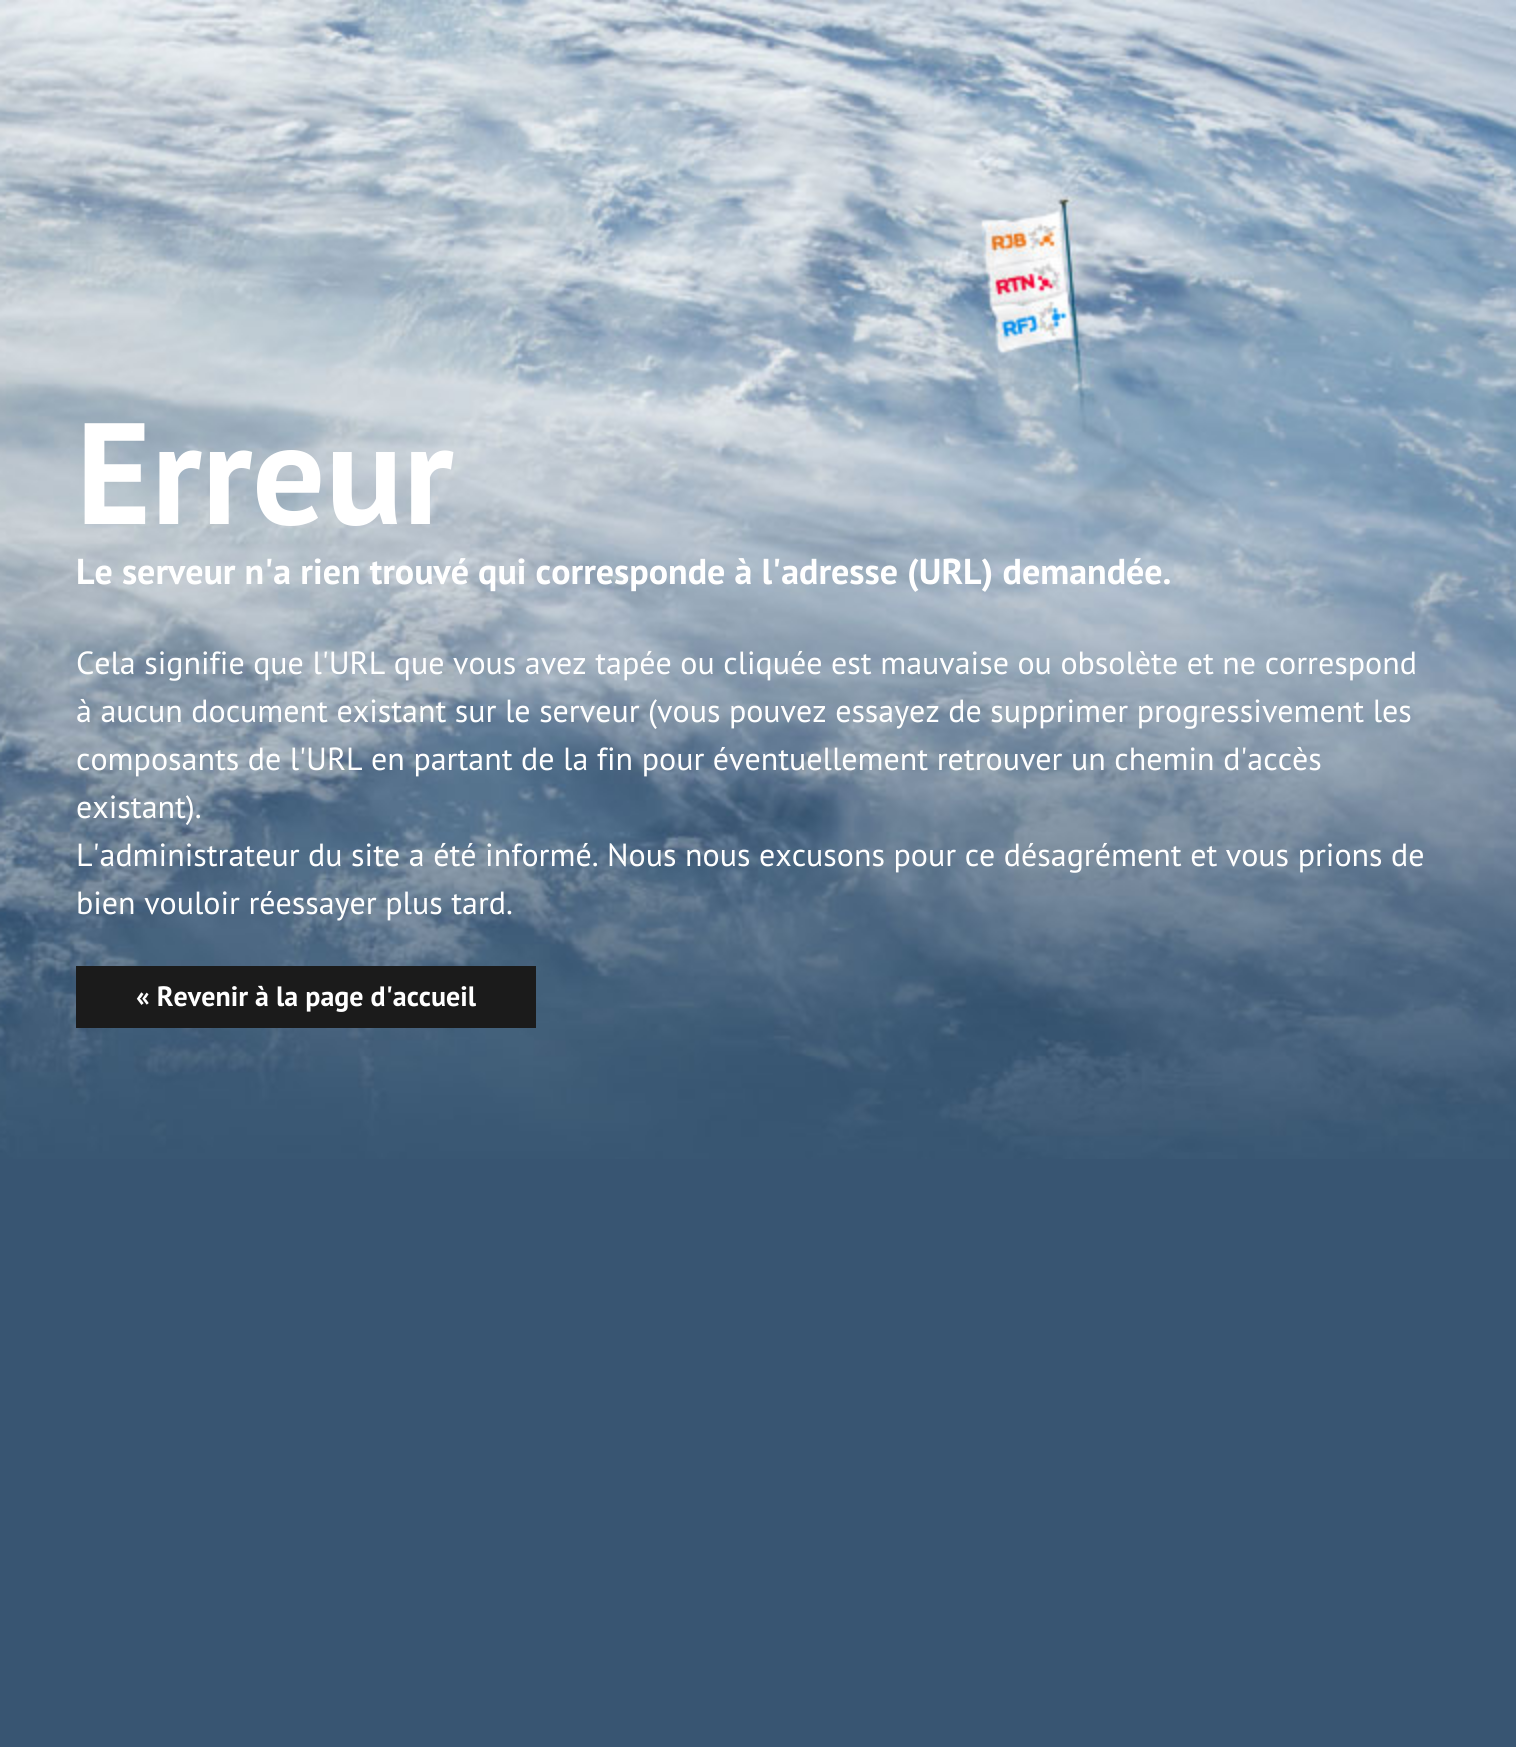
import math
import cairo


def paste(ctx, path, x, y, w, h):
	ctx.save()
	ctx.set_source_surface(cairo.ImageSurface.create_from_png(path), x, y)
	ctx.rectangle(x, y, w, h)
	ctx.fill()
	ctx.restore()

def draw(ctx):
	ctx.set_source_rgb(0.22, 0.333, 0.447)
	ctx.paint()
	paste(ctx, 'media/1.png', 0, 0, 1516, 1159)
	ctx.select_font_face('PT Sans', cairo.FONT_SLANT_NORMAL, cairo.FONT_WEIGHT_BOLD)
	ctx.set_font_size(144)
	ctx.set_source_rgb(1, 1, 1)
	ctx.move_to(76, 524)
	ctx.show_text('Erreur')
	ctx.set_font_size(36)
	ctx.move_to(76, 584)
	ctx.show_text('Le serveur n\'a rien trouvé qui corresponde à l\'adresse (URL) demandée.')
	ctx.select_font_face('PT Sans')
	ctx.set_font_size(32)
	for x, y, s in [
		(76, 674, 'Cela signifie que l\'URL que vous avez tapée ou cliquée est mauvaise ou obsolète et ne correspond'),
		(76, 722, 'à aucun document existant sur le serveur (vous pouvez essayez de supprimer progressivement les'),
		(76, 770, 'composants de l\'URL en partant de la fin pour éventuellement retrouver un chemin d\'accès'),
		(76, 818, 'existant).'),
		(76, 866, 'L\'administrateur du site a été informé. Nous nous excusons pour ce désagrément et vous prions de'),
		(76, 914, 'bien vouloir réessayer plus tard.'),
	]:
		ctx.move_to(x, y)
		ctx.show_text(s)
	ctx.set_source_rgb(0.106, 0.106, 0.106)
	ctx.rectangle(76, 966, 460, 62)
	ctx.fill()
	ctx.select_font_face('PT Sans', cairo.FONT_SLANT_NORMAL, cairo.FONT_WEIGHT_BOLD)
	ctx.set_font_size(28)
	ctx.set_source_rgb(1, 1, 1)
	ctx.move_to(136, 1006)
	ctx.show_text('« Revenir à la page d\'accueil')


surface = cairo.ImageSurface(cairo.FORMAT_RGB24, 1516, 1747)
ctx = cairo.Context(surface)
options = cairo.FontOptions()
options.set_hint_metrics(cairo.HINT_METRICS_OFF)
options.set_hint_style(cairo.HINT_STYLE_NONE)
ctx.set_font_options(options)
ctx.set_miter_limit(4)
draw(ctx)
surface.write_to_png('image.png')
